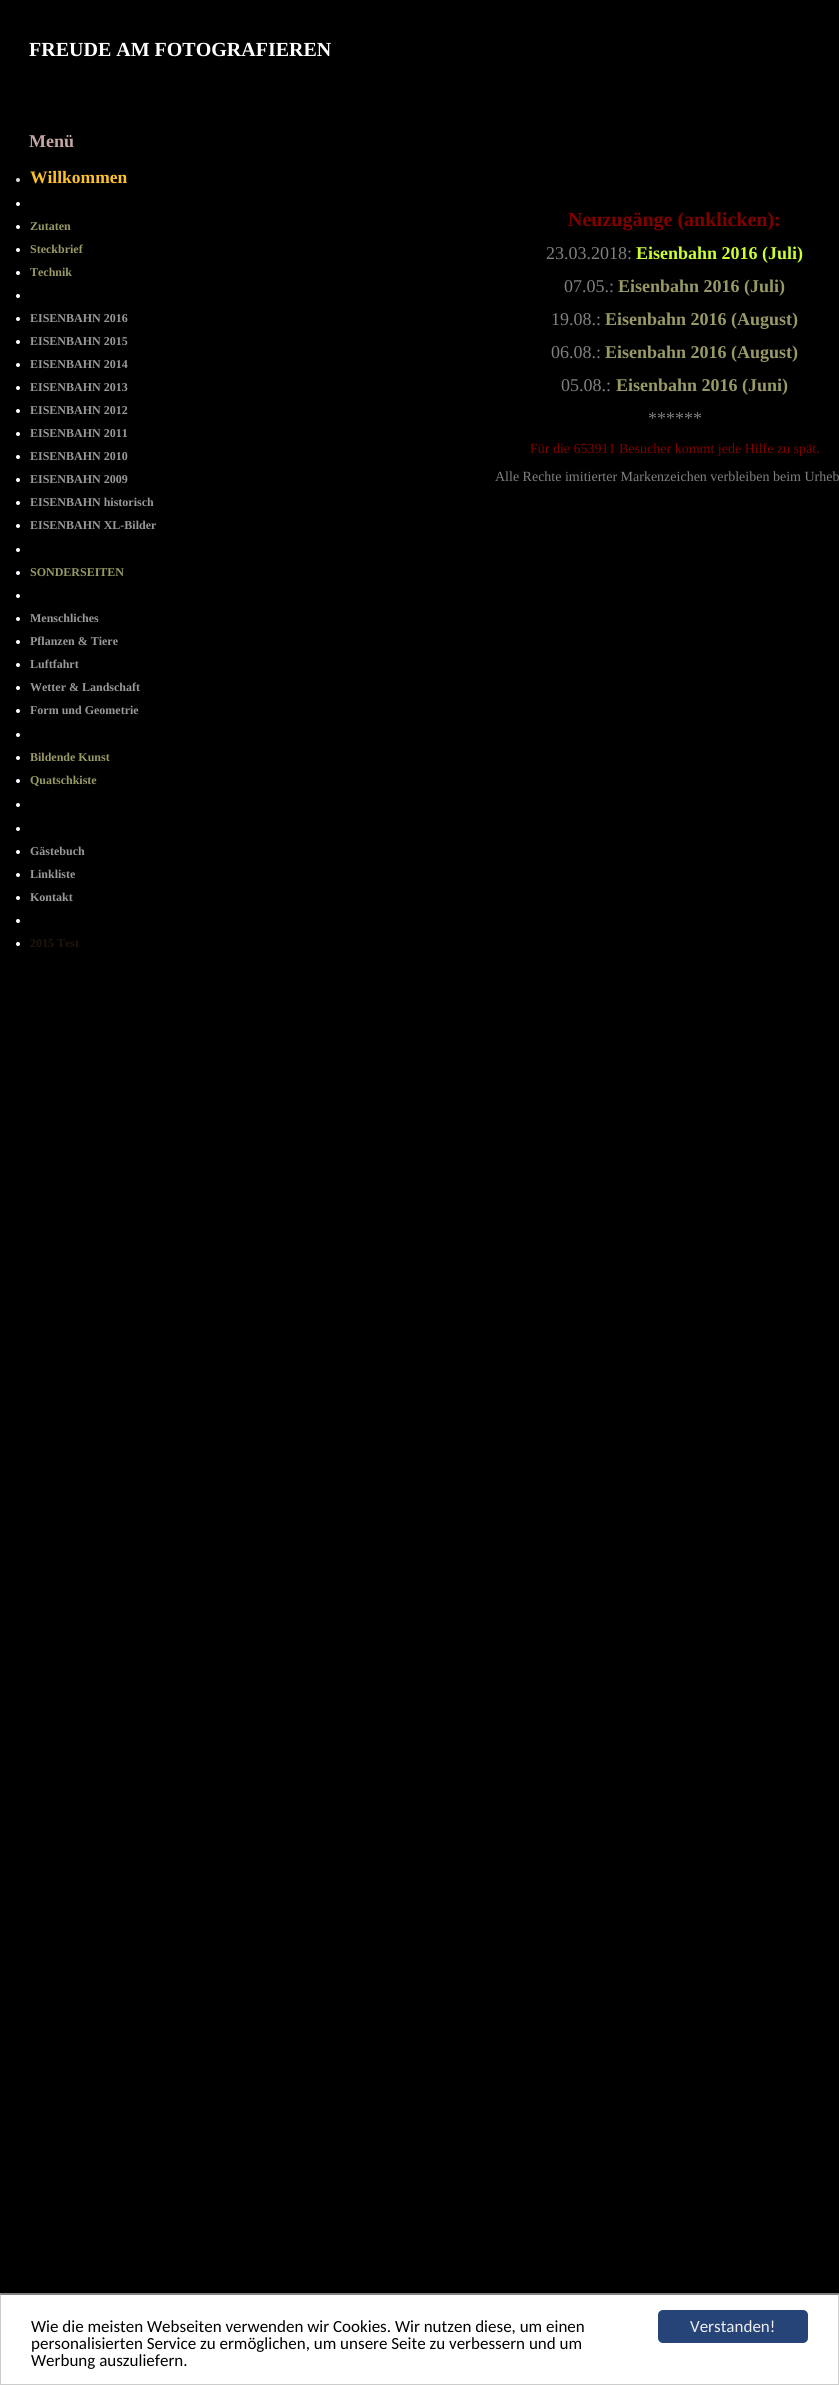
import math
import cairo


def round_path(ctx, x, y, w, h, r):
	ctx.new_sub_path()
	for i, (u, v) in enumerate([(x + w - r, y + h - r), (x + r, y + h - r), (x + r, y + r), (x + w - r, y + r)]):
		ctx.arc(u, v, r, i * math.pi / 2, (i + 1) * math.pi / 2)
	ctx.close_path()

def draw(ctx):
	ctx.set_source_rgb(0, 0, 0)
	ctx.paint()
	ctx.select_font_face('Liberation Serif', cairo.FONT_SLANT_NORMAL, cairo.FONT_WEIGHT_BOLD)
	ctx.set_font_size(20)
	ctx.set_source_rgb(1, 1, 1)
	ctx.move_to(29, 56)
	ctx.show_text('FREUDE AM FOTOGRAFIEREN')
	ctx.set_font_size(18)
	ctx.set_source_rgb(0.776, 0.647, 0.647)
	ctx.move_to(29, 147)
	ctx.show_text('Menü')
	ctx.set_source_rgb(0.867, 0.867, 0.867)
	ctx.new_path()
	ctx.arc(18, 180, 2, 0, 2 * math.pi)
	ctx.fill()
	ctx.set_font_size(17.5)
	ctx.set_source_rgb(0.988, 0.757, 0.165)
	ctx.move_to(30, 183)
	ctx.show_text('Willkommen')
	ctx.set_source_rgb(1, 1, 1)
	ctx.new_path()
	ctx.arc(18, 204, 2, 0, 2 * math.pi)
	ctx.fill()
	ctx.arc(18, 227, 2, 0, 2 * math.pi)
	ctx.fill()
	ctx.set_font_size(12)
	ctx.set_source_rgb(0.6, 0.6, 0.4)
	ctx.move_to(30, 230)
	ctx.show_text('Zutaten')
	ctx.set_source_rgb(1, 1, 1)
	ctx.new_path()
	ctx.arc(18, 250, 2, 0, 2 * math.pi)
	ctx.fill()
	ctx.set_source_rgb(0.6, 0.6, 0.4)
	ctx.move_to(30, 253)
	ctx.show_text('Steckbrief')
	ctx.set_source_rgb(1, 1, 1)
	ctx.new_path()
	ctx.arc(18, 273, 2, 0, 2 * math.pi)
	ctx.fill()
	ctx.set_source_rgb(0.6, 0.6, 0.4)
	ctx.move_to(30, 276)
	ctx.show_text('Technik')
	ctx.set_source_rgb(1, 1, 1)
	ctx.new_path()
	ctx.arc(18, 296, 2, 0, 2 * math.pi)
	ctx.fill()
	ctx.arc(18, 319, 2, 0, 2 * math.pi)
	ctx.fill()
	ctx.set_source_rgb(0.6, 0.6, 0.6)
	ctx.move_to(30, 322)
	ctx.show_text('EISENBAHN 2016')
	ctx.set_source_rgb(1, 1, 1)
	ctx.new_path()
	ctx.arc(18, 342, 2, 0, 2 * math.pi)
	ctx.fill()
	ctx.set_source_rgb(0.6, 0.6, 0.6)
	ctx.move_to(30, 345)
	ctx.show_text('EISENBAHN 2015')
	ctx.set_source_rgb(1, 1, 1)
	ctx.new_path()
	ctx.arc(18, 365, 2, 0, 2 * math.pi)
	ctx.fill()
	ctx.set_source_rgb(0.6, 0.6, 0.6)
	ctx.move_to(30, 368)
	ctx.show_text('EISENBAHN 2014')
	ctx.set_source_rgb(1, 1, 1)
	ctx.new_path()
	ctx.arc(18, 388, 2, 0, 2 * math.pi)
	ctx.fill()
	ctx.set_source_rgb(0.6, 0.6, 0.6)
	ctx.move_to(30, 391)
	ctx.show_text('EISENBAHN 2013')
	ctx.set_source_rgb(1, 1, 1)
	ctx.new_path()
	ctx.arc(18, 411, 2, 0, 2 * math.pi)
	ctx.fill()
	ctx.set_source_rgb(0.6, 0.6, 0.6)
	ctx.move_to(30, 414)
	ctx.show_text('EISENBAHN 2012')
	ctx.set_source_rgb(1, 1, 1)
	ctx.new_path()
	ctx.arc(18, 434, 2, 0, 2 * math.pi)
	ctx.fill()
	ctx.set_source_rgb(0.6, 0.6, 0.6)
	ctx.move_to(30, 437)
	ctx.show_text('EISENBAHN 2011')
	ctx.set_source_rgb(1, 1, 1)
	ctx.new_path()
	ctx.arc(18, 457, 2, 0, 2 * math.pi)
	ctx.fill()
	ctx.set_source_rgb(0.6, 0.6, 0.6)
	ctx.move_to(30, 460)
	ctx.show_text('EISENBAHN 2010')
	ctx.set_source_rgb(1, 1, 1)
	ctx.new_path()
	ctx.arc(18, 480, 2, 0, 2 * math.pi)
	ctx.fill()
	ctx.set_source_rgb(0.6, 0.6, 0.6)
	ctx.move_to(30, 483)
	ctx.show_text('EISENBAHN 2009')
	ctx.set_source_rgb(1, 1, 1)
	ctx.new_path()
	ctx.arc(18, 503, 2, 0, 2 * math.pi)
	ctx.fill()
	ctx.set_source_rgb(0.6, 0.6, 0.6)
	ctx.move_to(30, 506)
	ctx.show_text('EISENBAHN historisch')
	ctx.set_source_rgb(1, 1, 1)
	ctx.new_path()
	ctx.arc(18, 526, 2, 0, 2 * math.pi)
	ctx.fill()
	ctx.set_source_rgb(0.6, 0.6, 0.6)
	ctx.move_to(30, 529)
	ctx.show_text('EISENBAHN XL-Bilder')
	ctx.set_source_rgb(1, 1, 1)
	ctx.new_path()
	ctx.arc(18, 550, 2, 0, 2 * math.pi)
	ctx.fill()
	ctx.arc(18, 573, 2, 0, 2 * math.pi)
	ctx.fill()
	ctx.set_source_rgb(0.6, 0.6, 0.4)
	ctx.move_to(30, 576)
	ctx.show_text('SONDERSEITEN')
	ctx.set_source_rgb(1, 1, 1)
	ctx.new_path()
	ctx.arc(18, 596, 2, 0, 2 * math.pi)
	ctx.fill()
	ctx.arc(18, 619, 2, 0, 2 * math.pi)
	ctx.fill()
	ctx.set_source_rgb(0.6, 0.6, 0.6)
	ctx.move_to(30, 622)
	ctx.show_text('Menschliches')
	ctx.set_source_rgb(1, 1, 1)
	ctx.new_path()
	ctx.arc(18, 642, 2, 0, 2 * math.pi)
	ctx.fill()
	ctx.set_source_rgb(0.6, 0.6, 0.6)
	ctx.move_to(30, 645)
	ctx.show_text('Pflanzen & Tiere')
	ctx.set_source_rgb(1, 1, 1)
	ctx.new_path()
	ctx.arc(18, 665, 2, 0, 2 * math.pi)
	ctx.fill()
	ctx.set_source_rgb(0.6, 0.6, 0.6)
	ctx.move_to(30, 668)
	ctx.show_text('Luftfahrt')
	ctx.set_source_rgb(1, 1, 1)
	ctx.new_path()
	ctx.arc(18, 688, 2, 0, 2 * math.pi)
	ctx.fill()
	ctx.set_source_rgb(0.6, 0.6, 0.6)
	ctx.move_to(30, 691)
	ctx.show_text('Wetter & Landschaft')
	ctx.set_source_rgb(1, 1, 1)
	ctx.new_path()
	ctx.arc(18, 711, 2, 0, 2 * math.pi)
	ctx.fill()
	ctx.set_source_rgb(0.6, 0.6, 0.6)
	ctx.move_to(30, 714)
	ctx.show_text('Form und Geometrie')
	ctx.set_source_rgb(1, 1, 1)
	ctx.new_path()
	ctx.arc(18, 735, 2, 0, 2 * math.pi)
	ctx.fill()
	ctx.arc(18, 758, 2, 0, 2 * math.pi)
	ctx.fill()
	ctx.set_source_rgb(0.6, 0.6, 0.4)
	ctx.move_to(30, 761)
	ctx.show_text('Bildende Kunst')
	ctx.set_source_rgb(1, 1, 1)
	ctx.new_path()
	ctx.arc(18, 781, 2, 0, 2 * math.pi)
	ctx.fill()
	ctx.set_source_rgb(0.6, 0.6, 0.4)
	ctx.move_to(30, 784)
	ctx.show_text('Quatschkiste')
	ctx.set_source_rgb(1, 1, 1)
	ctx.new_path()
	ctx.arc(18, 805, 2, 0, 2 * math.pi)
	ctx.fill()
	ctx.arc(18, 829, 2, 0, 2 * math.pi)
	ctx.fill()
	ctx.arc(18, 852, 2, 0, 2 * math.pi)
	ctx.fill()
	ctx.set_source_rgb(0.6, 0.6, 0.6)
	ctx.move_to(30, 855)
	ctx.show_text('Gästebuch')
	ctx.set_source_rgb(1, 1, 1)
	ctx.new_path()
	ctx.arc(18, 875, 2, 0, 2 * math.pi)
	ctx.fill()
	ctx.set_source_rgb(0.6, 0.6, 0.6)
	ctx.move_to(30, 878)
	ctx.show_text('Linkliste')
	ctx.set_source_rgb(1, 1, 1)
	ctx.new_path()
	ctx.arc(18, 898, 2, 0, 2 * math.pi)
	ctx.fill()
	ctx.set_source_rgb(0.6, 0.6, 0.6)
	ctx.move_to(30, 901)
	ctx.show_text('Kontakt')
	ctx.set_source_rgb(1, 1, 1)
	ctx.new_path()
	ctx.arc(18, 921, 2, 0, 2 * math.pi)
	ctx.fill()
	ctx.arc(18, 944, 2, 0, 2 * math.pi)
	ctx.fill()
	ctx.set_source_rgb(0.129, 0.082, 0.039)
	ctx.move_to(30, 947)
	ctx.show_text('2015 Test')
	ctx.set_font_size(20)
	ctx.set_source_rgb(0.502, 0, 0)
	ctx.move_to(568, 226)
	ctx.show_text('Neuzugänge (anklicken):')
	ctx.select_font_face('Liberation Serif')
	ctx.set_font_size(18)
	ctx.set_source_rgb(0.502, 0.502, 0.502)
	ctx.move_to(546, 259)
	ctx.show_text('23.03.2018:')
	ctx.select_font_face('Liberation Serif', cairo.FONT_SLANT_NORMAL, cairo.FONT_WEIGHT_BOLD)
	ctx.set_source_rgb(0.8, 1, 0.2)
	ctx.move_to(636, 259)
	ctx.show_text('Eisenbahn 2016 (Juli)')
	ctx.select_font_face('Liberation Serif')
	ctx.set_source_rgb(0.502, 0.502, 0.502)
	ctx.move_to(564, 292)
	ctx.show_text('07.05.:')
	ctx.select_font_face('Liberation Serif', cairo.FONT_SLANT_NORMAL, cairo.FONT_WEIGHT_BOLD)
	ctx.set_source_rgb(0.6, 0.6, 0.4)
	ctx.move_to(618, 292)
	ctx.show_text('Eisenbahn 2016 (Juli)')
	ctx.select_font_face('Liberation Serif')
	ctx.set_source_rgb(0.502, 0.502, 0.502)
	ctx.move_to(551, 325)
	ctx.show_text('19.08.:')
	ctx.select_font_face('Liberation Serif', cairo.FONT_SLANT_NORMAL, cairo.FONT_WEIGHT_BOLD)
	ctx.set_source_rgb(0.6, 0.6, 0.4)
	ctx.move_to(605, 325)
	ctx.show_text('Eisenbahn 2016 (August)')
	ctx.select_font_face('Liberation Serif')
	ctx.set_source_rgb(0.502, 0.502, 0.502)
	ctx.move_to(551, 358)
	ctx.show_text('06.08.:')
	ctx.select_font_face('Liberation Serif', cairo.FONT_SLANT_NORMAL, cairo.FONT_WEIGHT_BOLD)
	ctx.set_source_rgb(0.6, 0.6, 0.4)
	ctx.move_to(605, 358)
	ctx.show_text('Eisenbahn 2016 (August)')
	ctx.select_font_face('Liberation Serif')
	ctx.set_source_rgb(0.502, 0.502, 0.502)
	ctx.move_to(561, 391)
	ctx.show_text('05.08.:')
	ctx.select_font_face('Liberation Serif', cairo.FONT_SLANT_NORMAL, cairo.FONT_WEIGHT_BOLD)
	ctx.set_source_rgb(0.6, 0.6, 0.4)
	ctx.move_to(616, 391)
	ctx.show_text('Eisenbahn 2016 (Juni)')
	ctx.select_font_face('Liberation Serif')
	ctx.set_source_rgb(0.502, 0.502, 0.502)
	ctx.move_to(648, 424)
	ctx.show_text('******')
	ctx.set_font_size(14)
	ctx.set_source_rgb(0.502, 0, 0)
	ctx.move_to(530, 453)
	ctx.show_text('Für die 653911 Besucher kommt jede Hilfe zu spät.')
	ctx.set_source_rgb(0.502, 0.502, 0.502)
	ctx.move_to(495, 481)
	ctx.show_text('Alle Rechte imitierter Markenzeichen verbleiben beim Urheb')
	ctx.set_source_rgb(1, 1, 1)
	ctx.rectangle(1, 2295, 837, 89)
	ctx.fill()
	ctx.set_source_rgb(0.502, 0.502, 0.502)
	ctx.new_path()
	ctx.move_to(0, 2293)
	ctx.line_to(839, 2293)
	ctx.line_to(838, 2295)
	ctx.line_to(1, 2295)
	ctx.close_path()
	ctx.fill()
	ctx.set_source_rgb(0.8, 0.8, 0.8)
	ctx.new_path()
	ctx.move_to(839, 2293)
	ctx.line_to(839, 2385)
	ctx.line_to(838, 2384)
	ctx.line_to(838, 2295)
	ctx.close_path()
	ctx.fill()
	ctx.rectangle(0, 2384, 839, 1)
	ctx.fill()
	ctx.new_path()
	ctx.move_to(0, 2385)
	ctx.line_to(0, 2293)
	ctx.line_to(1, 2295)
	ctx.line_to(1, 2384)
	ctx.close_path()
	ctx.fill()
	ctx.select_font_face('Carlito')
	ctx.set_font_size(17)
	ctx.set_source_rgb(0, 0, 0)
	for x, y, s in [
		(31, 2332, 'Wie die meisten Webseiten verwenden wir Cookies. Wir nutzen diese, um einen'),
		(31, 2349, 'personalisierten Service zu ermöglichen, um unsere Seite zu verbessern und um'),
		(31, 2366, 'Werbung auszuliefern.'),
	]:
		ctx.move_to(x, y)
		ctx.show_text(s)
	ctx.set_source_rgb(0.153, 0.267, 0.475)
	round_path(ctx, 658, 2310, 150, 33, 5)
	ctx.fill()
	ctx.set_source_rgb(0.933, 0.933, 0.933)
	ctx.move_to(690, 2332)
	ctx.show_text('Verstanden!')


surface = cairo.ImageSurface(cairo.FORMAT_RGB24, 839, 2385)
ctx = cairo.Context(surface)
options = cairo.FontOptions()
options.set_hint_metrics(cairo.HINT_METRICS_OFF)
options.set_hint_style(cairo.HINT_STYLE_NONE)
ctx.set_font_options(options)
ctx.set_miter_limit(4)
draw(ctx)
surface.write_to_png('image.png')
